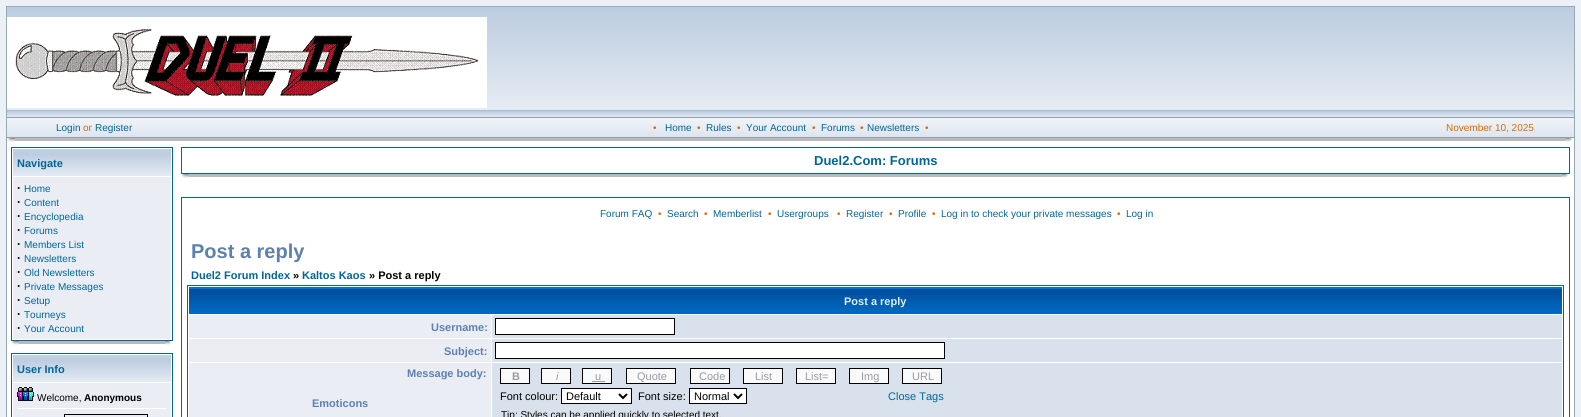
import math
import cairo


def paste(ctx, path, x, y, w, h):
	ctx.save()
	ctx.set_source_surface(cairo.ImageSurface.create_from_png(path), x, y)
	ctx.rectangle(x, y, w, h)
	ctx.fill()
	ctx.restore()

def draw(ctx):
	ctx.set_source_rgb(0.925, 0.941, 0.965)
	ctx.paint()
	ctx.set_source_rgb(1, 1, 1)
	ctx.rectangle(7, 138, 1567, 279)
	ctx.fill()
	ctx.rectangle(6.5, 6.5, 1568, 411)
	ctx.set_source_rgb(0.596, 0.667, 0.694)
	ctx.set_line_width(1)
	ctx.stroke()
	paste(ctx, 'media/1.png', 7, 7, 1567, 110)
	paste(ctx, 'media/2.png', 7, 17, 480, 91)
	paste(ctx, 'media/3.png', 7, 118, 169, 19)
	ctx.set_source_rgb(0.569, 0.627, 0.682)
	ctx.rectangle(7, 117, 1567, 1)
	ctx.fill()
	ctx.rectangle(7, 137, 1567, 1)
	ctx.fill()
	ctx.select_font_face('Liberation Sans')
	ctx.set_font_size(10)
	ctx.set_source_rgb(0, 0.4, 0.6)
	ctx.move_to(56, 131)
	ctx.show_text('Login')
	ctx.set_source_rgb(0.867, 0.412, 0)
	ctx.move_to(83, 131)
	ctx.show_text('or')
	ctx.set_source_rgb(0, 0.4, 0.6)
	ctx.move_to(95, 131)
	ctx.show_text('Register')
	paste(ctx, 'media/4.png', 176, 118, 1229, 19)
	ctx.set_source_rgb(0.867, 0.412, 0)
	ctx.move_to(653, 131)
	ctx.show_text('•')
	ctx.set_source_rgb(0, 0.4, 0.6)
	ctx.move_to(665, 131)
	ctx.show_text('Home')
	ctx.set_source_rgb(0.867, 0.412, 0)
	ctx.move_to(697, 131)
	ctx.show_text('•')
	ctx.set_source_rgb(0, 0.4, 0.6)
	ctx.move_to(706, 131)
	ctx.show_text('Rules')
	ctx.set_source_rgb(0.867, 0.412, 0)
	ctx.move_to(737, 131)
	ctx.show_text('•')
	ctx.set_source_rgb(0, 0.4, 0.6)
	ctx.move_to(746, 131)
	ctx.show_text('Your Account')
	ctx.set_source_rgb(0.867, 0.412, 0)
	ctx.move_to(812, 131)
	ctx.show_text('•')
	ctx.set_source_rgb(0, 0.4, 0.6)
	ctx.move_to(821, 131)
	ctx.show_text('Forums')
	ctx.set_source_rgb(0.867, 0.412, 0)
	ctx.move_to(860, 131)
	ctx.show_text('•')
	ctx.set_source_rgb(0, 0.4, 0.6)
	ctx.move_to(867, 131)
	ctx.show_text('Newsletters')
	ctx.set_source_rgb(0.867, 0.412, 0)
	ctx.move_to(925, 131)
	ctx.show_text('•')
	paste(ctx, 'media/3.png', 1405, 118, 169, 19)
	ctx.move_to(1446, 131)
	ctx.show_text('November 10, 2025')
	paste(ctx, 'media/5.png', 7, 138, 8, 4)
	ctx.set_source_rgb(0.729, 0.729, 0.729)
	ctx.rectangle(15, 138, 1551, 3)
	ctx.fill()
	paste(ctx, 'media/6.png', 1566, 138, 7, 4)
	ctx.set_source_rgb(0, 0.4, 0.6)
	ctx.rectangle(11, 147, 162, 194)
	ctx.fill()
	ctx.set_source_rgb(1, 1, 1)
	ctx.rectangle(12, 148, 160, 192)
	ctx.fill()
	paste(ctx, 'media/7.png', 13, 149, 158, 27)
	ctx.select_font_face('Liberation Sans', cairo.FONT_SLANT_NORMAL, cairo.FONT_WEIGHT_BOLD)
	ctx.set_font_size(11)
	ctx.set_source_rgb(0, 0.4, 0.6)
	ctx.move_to(17, 167)
	ctx.show_text('Navigate')
	ctx.set_source_rgb(0.918, 0.929, 0.957)
	ctx.rectangle(13, 177, 158, 162)
	ctx.fill()
	ctx.set_font_size(12)
	ctx.set_source_rgb(0, 0, 0)
	ctx.move_to(17, 192)
	ctx.show_text('·')
	ctx.select_font_face('Liberation Sans')
	ctx.set_font_size(10)
	ctx.set_source_rgb(0, 0.4, 0.6)
	ctx.move_to(24, 192)
	ctx.show_text('Home')
	ctx.select_font_face('Liberation Sans', cairo.FONT_SLANT_NORMAL, cairo.FONT_WEIGHT_BOLD)
	ctx.set_font_size(12)
	ctx.set_source_rgb(0, 0, 0)
	ctx.move_to(17, 206)
	ctx.show_text('·')
	ctx.select_font_face('Liberation Sans')
	ctx.set_font_size(10)
	ctx.set_source_rgb(0, 0.4, 0.6)
	ctx.move_to(24, 206)
	ctx.show_text('Content')
	ctx.select_font_face('Liberation Sans', cairo.FONT_SLANT_NORMAL, cairo.FONT_WEIGHT_BOLD)
	ctx.set_font_size(12)
	ctx.set_source_rgb(0, 0, 0)
	ctx.move_to(17, 220)
	ctx.show_text('·')
	ctx.select_font_face('Liberation Sans')
	ctx.set_font_size(10)
	ctx.set_source_rgb(0, 0.4, 0.6)
	ctx.move_to(24, 220)
	ctx.show_text('Encyclopedia')
	ctx.select_font_face('Liberation Sans', cairo.FONT_SLANT_NORMAL, cairo.FONT_WEIGHT_BOLD)
	ctx.set_font_size(12)
	ctx.set_source_rgb(0, 0, 0)
	ctx.move_to(17, 234)
	ctx.show_text('·')
	ctx.select_font_face('Liberation Sans')
	ctx.set_font_size(10)
	ctx.set_source_rgb(0, 0.4, 0.6)
	ctx.move_to(24, 234)
	ctx.show_text('Forums')
	ctx.select_font_face('Liberation Sans', cairo.FONT_SLANT_NORMAL, cairo.FONT_WEIGHT_BOLD)
	ctx.set_font_size(12)
	ctx.set_source_rgb(0, 0, 0)
	ctx.move_to(17, 248)
	ctx.show_text('·')
	ctx.select_font_face('Liberation Sans')
	ctx.set_font_size(10)
	ctx.set_source_rgb(0, 0.4, 0.6)
	ctx.move_to(24, 248)
	ctx.show_text('Members List')
	ctx.select_font_face('Liberation Sans', cairo.FONT_SLANT_NORMAL, cairo.FONT_WEIGHT_BOLD)
	ctx.set_font_size(12)
	ctx.set_source_rgb(0, 0, 0)
	ctx.move_to(17, 262)
	ctx.show_text('·')
	ctx.select_font_face('Liberation Sans')
	ctx.set_font_size(10)
	ctx.set_source_rgb(0, 0.4, 0.6)
	ctx.move_to(24, 262)
	ctx.show_text('Newsletters')
	ctx.select_font_face('Liberation Sans', cairo.FONT_SLANT_NORMAL, cairo.FONT_WEIGHT_BOLD)
	ctx.set_font_size(12)
	ctx.set_source_rgb(0, 0, 0)
	ctx.move_to(17, 276)
	ctx.show_text('·')
	ctx.select_font_face('Liberation Sans')
	ctx.set_font_size(10)
	ctx.set_source_rgb(0, 0.4, 0.6)
	ctx.move_to(24, 276)
	ctx.show_text('Old Newsletters')
	ctx.select_font_face('Liberation Sans', cairo.FONT_SLANT_NORMAL, cairo.FONT_WEIGHT_BOLD)
	ctx.set_font_size(12)
	ctx.set_source_rgb(0, 0, 0)
	ctx.move_to(17, 290)
	ctx.show_text('·')
	ctx.select_font_face('Liberation Sans')
	ctx.set_font_size(10)
	ctx.set_source_rgb(0, 0.4, 0.6)
	ctx.move_to(24, 290)
	ctx.show_text('Private Messages')
	ctx.select_font_face('Liberation Sans', cairo.FONT_SLANT_NORMAL, cairo.FONT_WEIGHT_BOLD)
	ctx.set_font_size(12)
	ctx.set_source_rgb(0, 0, 0)
	ctx.move_to(17, 304)
	ctx.show_text('·')
	ctx.select_font_face('Liberation Sans')
	ctx.set_font_size(10)
	ctx.set_source_rgb(0, 0.4, 0.6)
	ctx.move_to(24, 304)
	ctx.show_text('Setup')
	ctx.select_font_face('Liberation Sans', cairo.FONT_SLANT_NORMAL, cairo.FONT_WEIGHT_BOLD)
	ctx.set_font_size(12)
	ctx.set_source_rgb(0, 0, 0)
	ctx.move_to(17, 318)
	ctx.show_text('·')
	ctx.select_font_face('Liberation Sans')
	ctx.set_font_size(10)
	ctx.set_source_rgb(0, 0.4, 0.6)
	ctx.move_to(24, 318)
	ctx.show_text('Tourneys')
	ctx.select_font_face('Liberation Sans', cairo.FONT_SLANT_NORMAL, cairo.FONT_WEIGHT_BOLD)
	ctx.set_font_size(12)
	ctx.set_source_rgb(0, 0, 0)
	ctx.move_to(17, 332)
	ctx.show_text('·')
	ctx.select_font_face('Liberation Sans')
	ctx.set_font_size(10)
	ctx.set_source_rgb(0, 0.4, 0.6)
	ctx.move_to(24, 332)
	ctx.show_text('Your Account')
	paste(ctx, 'media/5.png', 11, 341, 8, 4)
	ctx.set_source_rgb(0.729, 0.729, 0.729)
	ctx.rectangle(19, 341, 146, 3)
	ctx.fill()
	paste(ctx, 'media/6.png', 165, 341, 7, 4)
	ctx.set_source_rgb(0, 0.4, 0.6)
	ctx.rectangle(11, 353, 162, 64)
	ctx.fill()
	ctx.set_source_rgb(1, 1, 1)
	ctx.rectangle(12, 354, 160, 63)
	ctx.fill()
	paste(ctx, 'media/7.png', 13, 355, 158, 27)
	ctx.select_font_face('Liberation Sans', cairo.FONT_SLANT_NORMAL, cairo.FONT_WEIGHT_BOLD)
	ctx.set_font_size(11)
	ctx.set_source_rgb(0, 0.4, 0.6)
	ctx.move_to(17, 373)
	ctx.show_text('User Info')
	ctx.set_source_rgb(0.918, 0.929, 0.957)
	ctx.rectangle(13, 383, 158, 34)
	ctx.fill()
	paste(ctx, 'media/8.png', 17, 387, 17, 14)
	ctx.select_font_face('Liberation Sans')
	ctx.set_font_size(10)
	ctx.set_source_rgb(0, 0, 0)
	ctx.move_to(37, 401)
	ctx.show_text('Welcome,')
	ctx.select_font_face('Liberation Sans', cairo.FONT_SLANT_NORMAL, cairo.FONT_WEIGHT_BOLD)
	ctx.move_to(84, 401)
	ctx.show_text('Anonymous')
	ctx.set_source_rgb(1, 1, 1)
	ctx.rectangle(17, 408, 150, 1)
	ctx.fill()
	ctx.rectangle(64.5, 414.5, 83, 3)
	ctx.set_source_rgb(0, 0, 0)
	ctx.stroke()
	ctx.set_source_rgb(0, 0.4, 0.6)
	ctx.rectangle(181, 147, 1389, 27)
	ctx.fill()
	ctx.set_source_rgb(1, 1, 1)
	ctx.rectangle(182, 148, 1387, 25)
	ctx.fill()
	ctx.set_font_size(13)
	ctx.set_source_rgb(0, 0.4, 0.6)
	ctx.move_to(814, 165)
	ctx.show_text('Duel2.Com: Forums')
	paste(ctx, 'media/5.png', 181, 174, 8, 4)
	ctx.set_source_rgb(0.729, 0.729, 0.729)
	ctx.rectangle(189, 174, 1373, 3)
	ctx.fill()
	paste(ctx, 'media/6.png', 1562, 174, 7, 4)
	ctx.set_source_rgb(0, 0.4, 0.6)
	ctx.rectangle(181, 197, 1389, 220)
	ctx.fill()
	ctx.set_source_rgb(1, 1, 1)
	ctx.rectangle(182, 198, 1387, 219)
	ctx.fill()
	ctx.select_font_face('Liberation Sans')
	ctx.set_font_size(10)
	ctx.set_source_rgb(0, 0.4, 0.6)
	ctx.move_to(600, 217)
	ctx.show_text('Forum FAQ')
	ctx.set_source_rgb(0.867, 0.412, 0)
	ctx.move_to(658, 217)
	ctx.show_text('•')
	ctx.set_source_rgb(0, 0.4, 0.6)
	ctx.move_to(667, 217)
	ctx.show_text('Search')
	ctx.set_source_rgb(0.867, 0.412, 0)
	ctx.move_to(704, 217)
	ctx.show_text('•')
	ctx.set_source_rgb(0, 0.4, 0.6)
	ctx.move_to(713, 217)
	ctx.show_text('Memberlist')
	ctx.set_source_rgb(0.867, 0.412, 0)
	ctx.move_to(768, 217)
	ctx.show_text('•')
	ctx.set_source_rgb(0, 0.4, 0.6)
	ctx.move_to(777, 217)
	ctx.show_text('Usergroups')
	ctx.set_source_rgb(0.867, 0.412, 0)
	ctx.move_to(837, 217)
	ctx.show_text('•')
	ctx.set_source_rgb(0, 0.4, 0.6)
	ctx.move_to(846, 217)
	ctx.show_text('Register')
	ctx.set_source_rgb(0.867, 0.412, 0)
	ctx.move_to(889, 217)
	ctx.show_text('•')
	ctx.set_source_rgb(0, 0.4, 0.6)
	ctx.move_to(898, 217)
	ctx.show_text('Profile')
	ctx.set_source_rgb(0.867, 0.412, 0)
	ctx.move_to(932, 217)
	ctx.show_text('•')
	ctx.set_source_rgb(0, 0.4, 0.6)
	ctx.move_to(941, 217)
	ctx.show_text('Log in to check your private messages')
	ctx.set_source_rgb(0.867, 0.412, 0)
	ctx.move_to(1117, 217)
	ctx.show_text('•')
	ctx.set_source_rgb(0, 0.4, 0.6)
	ctx.move_to(1126, 217)
	ctx.show_text('Log in')
	ctx.select_font_face('Liberation Sans', cairo.FONT_SLANT_NORMAL, cairo.FONT_WEIGHT_BOLD)
	ctx.set_font_size(20)
	ctx.set_source_rgb(0.361, 0.506, 0.694)
	ctx.move_to(191, 258)
	ctx.show_text('Post a reply')
	ctx.set_font_size(11)
	ctx.set_source_rgb(0, 0.4, 0.6)
	ctx.move_to(191, 279)
	ctx.show_text('Duel2 Forum Index')
	ctx.set_source_rgb(0, 0, 0)
	ctx.move_to(293, 279)
	ctx.show_text('»')
	ctx.set_source_rgb(0, 0.4, 0.6)
	ctx.move_to(302, 279)
	ctx.show_text('Kaltos Kaos')
	ctx.set_source_rgb(0, 0, 0)
	ctx.move_to(369, 279)
	ctx.show_text('» Post a reply')
	ctx.rectangle(187.5, 285.5, 1376, 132)
	ctx.set_source_rgb(0, 0.4, 0.6)
	ctx.stroke()
	paste(ctx, 'media/9.png', 189, 287, 1373, 27)
	ctx.set_source_rgb(0.871, 0.933, 0.953)
	ctx.move_to(844, 305)
	ctx.show_text('Post a reply')
	ctx.set_source_rgb(0.918, 0.929, 0.957)
	ctx.rectangle(189, 315, 302, 23)
	ctx.fill()
	ctx.set_source_rgb(0.361, 0.506, 0.694)
	ctx.move_to(431, 331)
	ctx.show_text('Username:')
	ctx.set_source_rgb(0.851, 0.886, 0.925)
	ctx.rectangle(492, 315, 1070, 23)
	ctx.fill()
	ctx.set_source_rgb(1, 1, 1)
	ctx.rectangle(495.5, 318.5, 179, 16)
	ctx.fill_preserve()
	ctx.set_source_rgb(0, 0, 0)
	ctx.stroke()
	ctx.set_source_rgb(0.918, 0.929, 0.957)
	ctx.rectangle(189, 339, 302, 23)
	ctx.fill()
	ctx.set_source_rgb(0.361, 0.506, 0.694)
	ctx.move_to(444, 355)
	ctx.show_text('Subject:')
	ctx.set_source_rgb(0.851, 0.886, 0.925)
	ctx.rectangle(492, 339, 1070, 23)
	ctx.fill()
	ctx.set_source_rgb(1, 1, 1)
	ctx.rectangle(495.5, 342.5, 449, 16)
	ctx.fill_preserve()
	ctx.set_source_rgb(0, 0, 0)
	ctx.stroke()
	ctx.set_source_rgb(0.918, 0.929, 0.957)
	ctx.rectangle(189, 363, 302, 54)
	ctx.fill()
	ctx.set_source_rgb(0.361, 0.506, 0.694)
	ctx.move_to(407, 377)
	ctx.show_text('Message body:')
	ctx.move_to(312, 407)
	ctx.show_text('Emoticons')
	ctx.set_source_rgb(0.851, 0.886, 0.925)
	ctx.rectangle(492, 363, 1070, 54)
	ctx.fill()
	ctx.set_source_rgb(0.98, 0.98, 0.98)
	ctx.rectangle(500.5, 368.5, 29, 15)
	ctx.fill_preserve()
	ctx.set_source_rgb(0, 0, 0)
	ctx.stroke()
	ctx.set_source_rgb(0.6, 0.6, 0.667)
	ctx.move_to(512, 380)
	ctx.show_text('B')
	ctx.set_source_rgb(0.98, 0.98, 0.98)
	ctx.rectangle(541.5, 368.5, 29, 15)
	ctx.fill_preserve()
	ctx.set_source_rgb(0, 0, 0)
	ctx.stroke()
	ctx.select_font_face('Liberation Sans', cairo.FONT_SLANT_ITALIC)
	ctx.set_source_rgb(0.6, 0.6, 0.667)
	ctx.move_to(556, 380)
	ctx.show_text('i')
	ctx.set_source_rgb(0.98, 0.98, 0.98)
	ctx.rectangle(582.5, 368.5, 29, 15)
	ctx.fill_preserve()
	ctx.set_source_rgb(0, 0, 0)
	ctx.stroke()
	ctx.select_font_face('Liberation Sans')
	ctx.set_source_rgb(0.6, 0.6, 0.667)
	ctx.move_to(595, 380)
	ctx.show_text('u')
	ctx.rectangle(592, 381, 13, 1)
	ctx.fill()
	ctx.set_source_rgb(0.98, 0.98, 0.98)
	ctx.rectangle(626.5, 368.5, 49, 15)
	ctx.fill_preserve()
	ctx.set_source_rgb(0, 0, 0)
	ctx.stroke()
	ctx.set_source_rgb(0.6, 0.6, 0.667)
	ctx.move_to(637, 380)
	ctx.show_text('Quote')
	ctx.set_source_rgb(0.98, 0.98, 0.98)
	ctx.rectangle(690.5, 368.5, 39, 15)
	ctx.fill_preserve()
	ctx.set_source_rgb(0, 0, 0)
	ctx.stroke()
	ctx.set_source_rgb(0.6, 0.6, 0.667)
	ctx.move_to(699, 380)
	ctx.show_text('Code')
	ctx.set_source_rgb(0.98, 0.98, 0.98)
	ctx.rectangle(743.5, 368.5, 39, 15)
	ctx.fill_preserve()
	ctx.set_source_rgb(0, 0, 0)
	ctx.stroke()
	ctx.set_source_rgb(0.6, 0.6, 0.667)
	ctx.move_to(755, 380)
	ctx.show_text('List')
	ctx.set_source_rgb(0.98, 0.98, 0.98)
	ctx.rectangle(796.5, 368.5, 39, 15)
	ctx.fill_preserve()
	ctx.set_source_rgb(0, 0, 0)
	ctx.stroke()
	ctx.set_source_rgb(0.6, 0.6, 0.667)
	ctx.move_to(805, 380)
	ctx.show_text('List=')
	ctx.set_source_rgb(0.98, 0.98, 0.98)
	ctx.rectangle(849.5, 368.5, 39, 15)
	ctx.fill_preserve()
	ctx.set_source_rgb(0, 0, 0)
	ctx.stroke()
	ctx.set_source_rgb(0.6, 0.6, 0.667)
	ctx.move_to(861, 380)
	ctx.show_text('Img')
	ctx.set_source_rgb(0.98, 0.98, 0.98)
	ctx.rectangle(902.5, 368.5, 39, 15)
	ctx.fill_preserve()
	ctx.set_source_rgb(0, 0, 0)
	ctx.stroke()
	ctx.set_source_rgb(0.6, 0.6, 0.667)
	ctx.move_to(912, 380)
	ctx.show_text('URL')
	ctx.set_source_rgb(0, 0, 0)
	ctx.move_to(500, 400)
	ctx.show_text('Font colour:')
	ctx.set_source_rgb(1, 1, 1)
	ctx.rectangle(561.5, 388.5, 70, 15)
	ctx.fill_preserve()
	ctx.set_source_rgb(0, 0, 0)
	ctx.stroke()
	ctx.new_path()
	ctx.move_to(619, 394)
	ctx.line_to(623, 398)
	ctx.line_to(627, 394)
	ctx.set_line_width(2)
	ctx.stroke()
	ctx.move_to(566, 400)
	ctx.show_text('Default')
	ctx.move_to(638, 400)
	ctx.show_text('Font size:')
	ctx.set_source_rgb(1, 1, 1)
	ctx.rectangle(689.5, 388.5, 57, 15)
	ctx.fill_preserve()
	ctx.set_source_rgb(0, 0, 0)
	ctx.set_line_width(1)
	ctx.stroke()
	ctx.new_path()
	ctx.move_to(734, 394)
	ctx.line_to(738, 398)
	ctx.line_to(742, 394)
	ctx.set_line_width(2)
	ctx.stroke()
	ctx.move_to(694, 400)
	ctx.show_text('Normal')
	ctx.set_source_rgb(0, 0.4, 0.6)
	ctx.move_to(888, 400)
	ctx.show_text('Close Tags')
	ctx.set_font_size(10)
	ctx.set_source_rgb(0, 0, 0)
	ctx.move_to(501, 418)
	ctx.show_text('Tip: Styles can be applied quickly to selected text.')


surface = cairo.ImageSurface(cairo.FORMAT_RGB24, 1581, 417)
ctx = cairo.Context(surface)
options = cairo.FontOptions()
options.set_hint_metrics(cairo.HINT_METRICS_OFF)
options.set_hint_style(cairo.HINT_STYLE_NONE)
ctx.set_font_options(options)
ctx.set_miter_limit(4)
draw(ctx)
surface.write_to_png('image.png')
